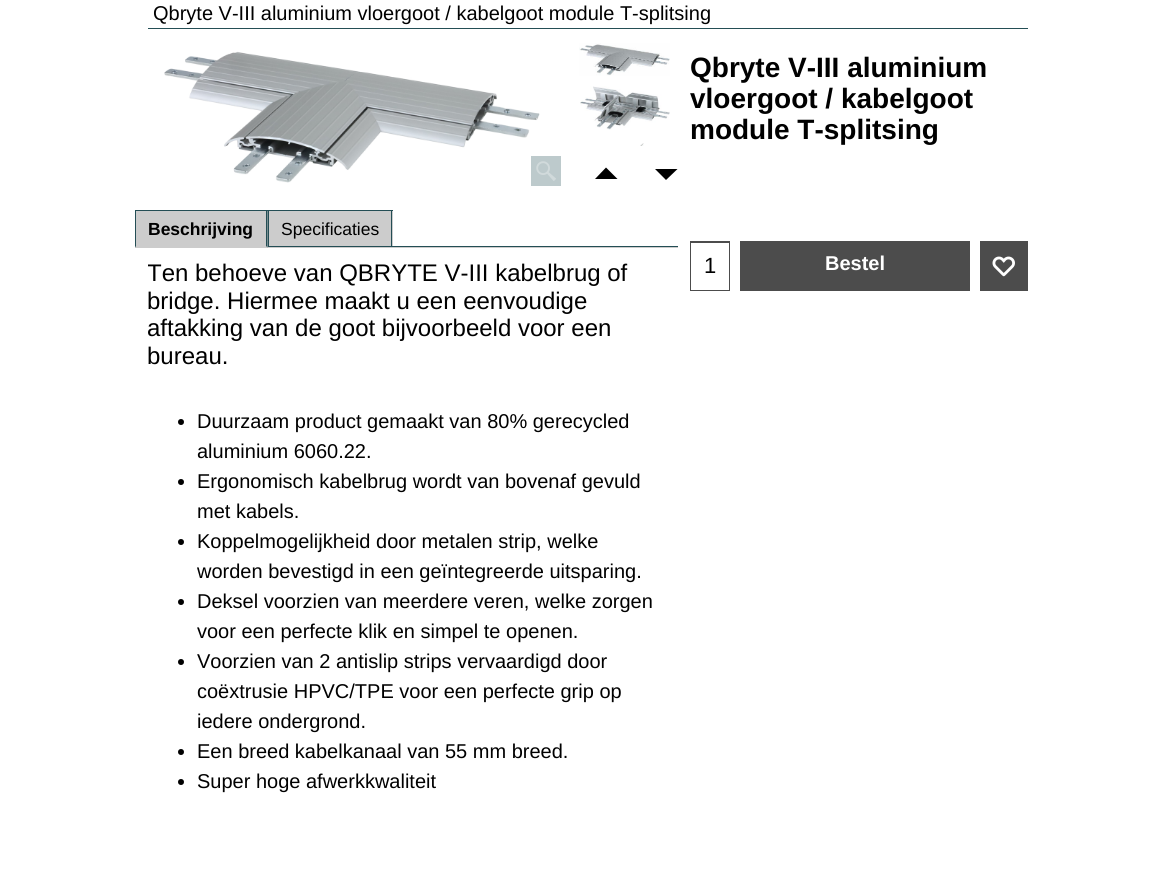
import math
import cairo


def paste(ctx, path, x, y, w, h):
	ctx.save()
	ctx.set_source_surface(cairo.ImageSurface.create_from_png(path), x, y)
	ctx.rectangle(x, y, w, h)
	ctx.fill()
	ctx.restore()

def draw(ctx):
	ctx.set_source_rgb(1, 1, 1)
	ctx.paint()
	ctx.set_source_rgb(0.141, 0.306, 0.333)
	ctx.rectangle(148, 28, 880, 1)
	ctx.fill()
	ctx.select_font_face('Liberation Sans')
	ctx.set_font_size(20)
	ctx.set_source_rgb(0, 0, 0)
	ctx.move_to(153, 20)
	ctx.show_text('Qbryte V-III aluminium vloergoot / kabelgoot module T-splitsing')
	paste(ctx, 'media/1.png', 164, 51, 376, 132)
	ctx.set_source_rgb(0.741, 0.792, 0.8)
	ctx.rectangle(531, 156, 30, 30)
	ctx.fill()
	paste(ctx, 'media/2.png', 536, 161, 20, 20)
	paste(ctx, 'media/3.png', 579, 43, 91, 33)
	paste(ctx, 'media/4.png', 580, 86, 90, 44)
	paste(ctx, 'media/5.png', 640, 143, 4, 3)
	ctx.set_source_rgb(0, 0, 0)
	ctx.new_path()
	ctx.move_to(617.5, 179)
	ctx.line_to(606, 167.5)
	ctx.line_to(595, 179)
	ctx.close_path()
	ctx.fill()
	ctx.new_path()
	ctx.move_to(655, 169)
	ctx.line_to(666, 180)
	ctx.line_to(677.5, 169)
	ctx.close_path()
	ctx.fill()
	ctx.select_font_face('Liberation Sans', cairo.FONT_SLANT_NORMAL, cairo.FONT_WEIGHT_BOLD)
	ctx.set_font_size(28)
	for x, y, s in [
		(690, 77, 'Qbryte V-III aluminium'),
		(690, 108, 'vloergoot / kabelgoot'),
		(690, 139, 'module T-splitsing'),
	]:
		ctx.move_to(x, y)
		ctx.show_text(s)
	ctx.set_source_rgb(0.298, 0.298, 0.298)
	ctx.rectangle(690, 241, 40, 50)
	ctx.fill()
	ctx.set_source_rgb(1, 1, 1)
	ctx.rectangle(691, 243, 38, 47)
	ctx.fill()
	ctx.select_font_face('Liberation Sans')
	ctx.set_font_size(22)
	ctx.set_source_rgb(0, 0, 0)
	ctx.move_to(704, 273)
	ctx.show_text('1')
	ctx.set_source_rgb(0.298, 0.298, 0.298)
	ctx.rectangle(740, 241, 230, 50)
	ctx.fill()
	ctx.select_font_face('Liberation Sans', cairo.FONT_SLANT_NORMAL, cairo.FONT_WEIGHT_BOLD)
	ctx.set_font_size(20)
	ctx.set_source_rgb(1, 1, 1)
	ctx.move_to(825, 270)
	ctx.show_text('Bestel')
	ctx.set_source_rgb(0.298, 0.298, 0.298)
	ctx.rectangle(980, 241, 48, 50)
	ctx.fill()
	paste(ctx, 'media/6.png', 992, 256, 23, 21)
	ctx.set_source_rgb(0.8, 0.8, 0.8)
	ctx.rectangle(135, 211, 133, 37)
	ctx.fill()
	ctx.set_source_rgb(0.141, 0.306, 0.333)
	ctx.rectangle(135, 210, 258, 1)
	ctx.fill()
	ctx.new_path()
	ctx.move_to(267.5, 210)
	ctx.line_to(267.5, 247.5)
	ctx.line_to(266, 246)
	ctx.line_to(266, 211)
	ctx.close_path()
	ctx.fill()
	ctx.new_path()
	ctx.move_to(135, 247.5)
	ctx.line_to(135, 210)
	ctx.line_to(136, 211)
	ctx.line_to(136, 246)
	ctx.close_path()
	ctx.fill()
	ctx.set_font_size(17.5)
	ctx.set_source_rgb(0, 0, 0)
	ctx.move_to(148, 235)
	ctx.show_text('Beschrijving')
	ctx.set_source_rgb(0.8, 0.8, 0.8)
	ctx.rectangle(269, 211, 124, 35)
	ctx.fill()
	ctx.set_source_rgb(0.141, 0.306, 0.333)
	ctx.rectangle(391, 210, 1, 36)
	ctx.rectangle(268, 210, 1, 36)
	ctx.fill()
	ctx.select_font_face('Liberation Sans')
	ctx.set_source_rgb(0, 0, 0)
	ctx.move_to(281, 235)
	ctx.show_text('Specificaties')
	ctx.set_source_rgb(0.8, 0.8, 0.8)
	ctx.rectangle(268, 247, 410, 1)
	ctx.fill()
	ctx.set_source_rgb(0.141, 0.306, 0.333)
	ctx.rectangle(268, 246, 410, 1)
	ctx.fill()
	ctx.save()
	ctx.rectangle(148, 254, 517, 140)
	ctx.clip()
	ctx.set_font_size(24)
	ctx.set_source_rgb(0, 0, 0)
	ctx.move_to(147, 281)
	ctx.show_text('Ten behoeve van QBRYTE V-III kabelbrug of')
	ctx.restore()
	ctx.set_font_size(24)
	ctx.set_source_rgb(0, 0, 0)
	for x, y, s in [
		(147, 309, 'bridge. Hiermee maakt u een eenvoudige'),
		(147, 336, 'aftakking van de goot bijvoorbeeld voor een'),
		(147, 364, 'bureau.'),
	]:
		ctx.move_to(x, y)
		ctx.show_text(s)
	ctx.new_path()
	ctx.arc(181, 422, 3, 0, 2 * math.pi)
	ctx.fill()
	ctx.set_font_size(20)
	ctx.move_to(197, 428)
	ctx.show_text('Duurzaam product gemaakt van 80% gerecycled')
	ctx.move_to(197, 458)
	ctx.show_text('aluminium 6060.22.')
	ctx.new_path()
	ctx.arc(181, 482, 3, 0, 2 * math.pi)
	ctx.fill()
	ctx.move_to(197, 488)
	ctx.show_text('Ergonomisch kabelbrug wordt van bovenaf gevuld')
	ctx.move_to(197, 518)
	ctx.show_text('met kabels.')
	ctx.new_path()
	ctx.arc(181, 542, 3, 0, 2 * math.pi)
	ctx.fill()
	ctx.move_to(197, 548)
	ctx.show_text('Koppelmogelijkheid door metalen strip, welke')
	ctx.move_to(197, 578)
	ctx.show_text('worden bevestigd in een geïntegreerde uitsparing.')
	ctx.new_path()
	ctx.arc(181, 602, 3, 0, 2 * math.pi)
	ctx.fill()
	ctx.move_to(197, 608)
	ctx.show_text('Deksel voorzien van meerdere veren, welke zorgen')
	ctx.move_to(197, 638)
	ctx.show_text('voor een perfecte klik en simpel te openen.')
	ctx.new_path()
	ctx.arc(181, 662, 3, 0, 2 * math.pi)
	ctx.fill()
	for x, y, s in [
		(197, 668, 'Voorzien van 2 antislip strips vervaardigd door'),
		(197, 698, 'coëxtrusie HPVC/TPE voor een perfecte grip op'),
		(197, 728, 'iedere ondergrond.'),
	]:
		ctx.move_to(x, y)
		ctx.show_text(s)
	ctx.new_path()
	ctx.arc(181, 752, 3, 0, 2 * math.pi)
	ctx.fill()
	ctx.move_to(197, 758)
	ctx.show_text('Een breed kabelkanaal van 55 mm breed.')
	ctx.new_path()
	ctx.arc(181, 782, 3, 0, 2 * math.pi)
	ctx.fill()
	ctx.move_to(197, 788)
	ctx.show_text('Super hoge afwerkkwaliteit')


surface = cairo.ImageSurface(cairo.FORMAT_RGB24, 1173, 877)
ctx = cairo.Context(surface)
options = cairo.FontOptions()
options.set_hint_metrics(cairo.HINT_METRICS_OFF)
options.set_hint_style(cairo.HINT_STYLE_NONE)
ctx.set_font_options(options)
ctx.set_miter_limit(4)
draw(ctx)
surface.write_to_png('image.png')
